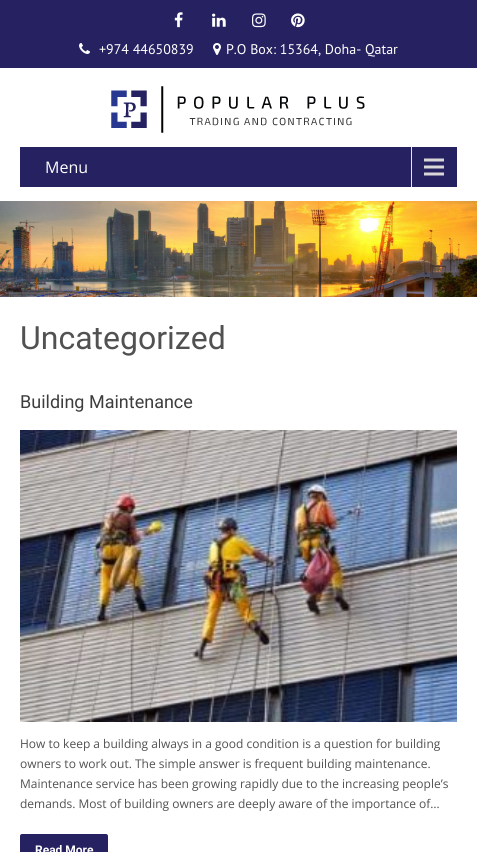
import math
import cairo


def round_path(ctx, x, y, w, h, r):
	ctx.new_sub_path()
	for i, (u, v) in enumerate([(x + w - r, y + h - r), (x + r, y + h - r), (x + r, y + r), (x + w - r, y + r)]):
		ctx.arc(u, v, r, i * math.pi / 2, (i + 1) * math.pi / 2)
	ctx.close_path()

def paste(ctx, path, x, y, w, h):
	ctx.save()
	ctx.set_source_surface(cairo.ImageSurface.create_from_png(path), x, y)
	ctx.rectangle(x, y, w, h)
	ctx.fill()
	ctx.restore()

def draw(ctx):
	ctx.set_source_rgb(1, 1, 1)
	ctx.paint()
	ctx.set_source_rgb(0.149, 0.133, 0.38)
	ctx.rectangle(0, 0, 477, 68)
	ctx.fill()
	paste(ctx, 'media/1.png', 174, 12, 9, 16)
	paste(ctx, 'media/2.png', 212, 13, 14, 14)
	paste(ctx, 'media/3.png', 252, 13, 14, 15)
	paste(ctx, 'media/4.png', 291, 13, 14, 15)
	paste(ctx, 'media/5.png', 79, 43, 11, 11)
	ctx.select_font_face('PT Sans')
	ctx.set_font_size(14)
	ctx.set_source_rgb(1, 1, 1)
	ctx.move_to(99, 54)
	ctx.show_text('+974 44650839')
	paste(ctx, 'media/6.png', 213, 43, 8, 12)
	ctx.move_to(226, 54)
	ctx.show_text('P.O Box: 15364, Doha- Qatar')
	paste(ctx, 'media/7.png', 111, 86, 254, 47)
	ctx.set_source_rgb(0.149, 0.133, 0.38)
	ctx.rectangle(20, 147, 437, 40)
	ctx.fill()
	paste(ctx, 'media/8.png', 411, 147, 33, 40)
	ctx.select_font_face('Open Sans')
	ctx.set_font_size(16)
	ctx.set_source_rgb(1, 1, 1)
	ctx.move_to(45, 173)
	ctx.show_text('Menu')
	paste(ctx, 'media/9.png', 0, 201, 477, 96)
	ctx.select_font_face('Roboto')
	ctx.set_font_size(32)
	ctx.set_source_rgb(0.318, 0.318, 0.318)
	ctx.move_to(20, 349)
	ctx.show_text('Uncategorized')
	ctx.set_font_size(18)
	ctx.set_source_rgb(0.239, 0.239, 0.239)
	ctx.move_to(20, 408)
	ctx.show_text('Building Maintenance')
	paste(ctx, 'media/10.png', 20, 430, 437, 292)
	ctx.select_font_face('Open Sans')
	ctx.set_font_size(12)
	ctx.set_source_rgb(0.318, 0.318, 0.318)
	for x, y, s in [
		(20, 748, 'How to keep a building always in a good condition is a question for building'),
		(20, 768, 'owners to work out. The simple answer is frequent building maintenance.'),
		(20, 788, 'Maintenance service has been growing rapidly due to the increasing people’s'),
		(20, 808, 'demands. Most of building owners are deeply aware of the importance of…'),
	]:
		ctx.move_to(x, y)
		ctx.show_text(s)
	ctx.set_source_rgb(0.149, 0.133, 0.38)
	round_path(ctx, 20, 834, 88, 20, 2)
	ctx.fill()
	ctx.select_font_face('Roboto', cairo.FONT_SLANT_NORMAL, cairo.FONT_WEIGHT_BOLD)
	ctx.set_source_rgb(1, 1, 1)
	ctx.move_to(35, 854)
	ctx.show_text('Read More')


surface = cairo.ImageSurface(cairo.FORMAT_RGB24, 477, 852)
ctx = cairo.Context(surface)
options = cairo.FontOptions()
options.set_hint_metrics(cairo.HINT_METRICS_OFF)
options.set_hint_style(cairo.HINT_STYLE_NONE)
ctx.set_font_options(options)
ctx.set_miter_limit(4)
draw(ctx)
surface.write_to_png('image.png')
